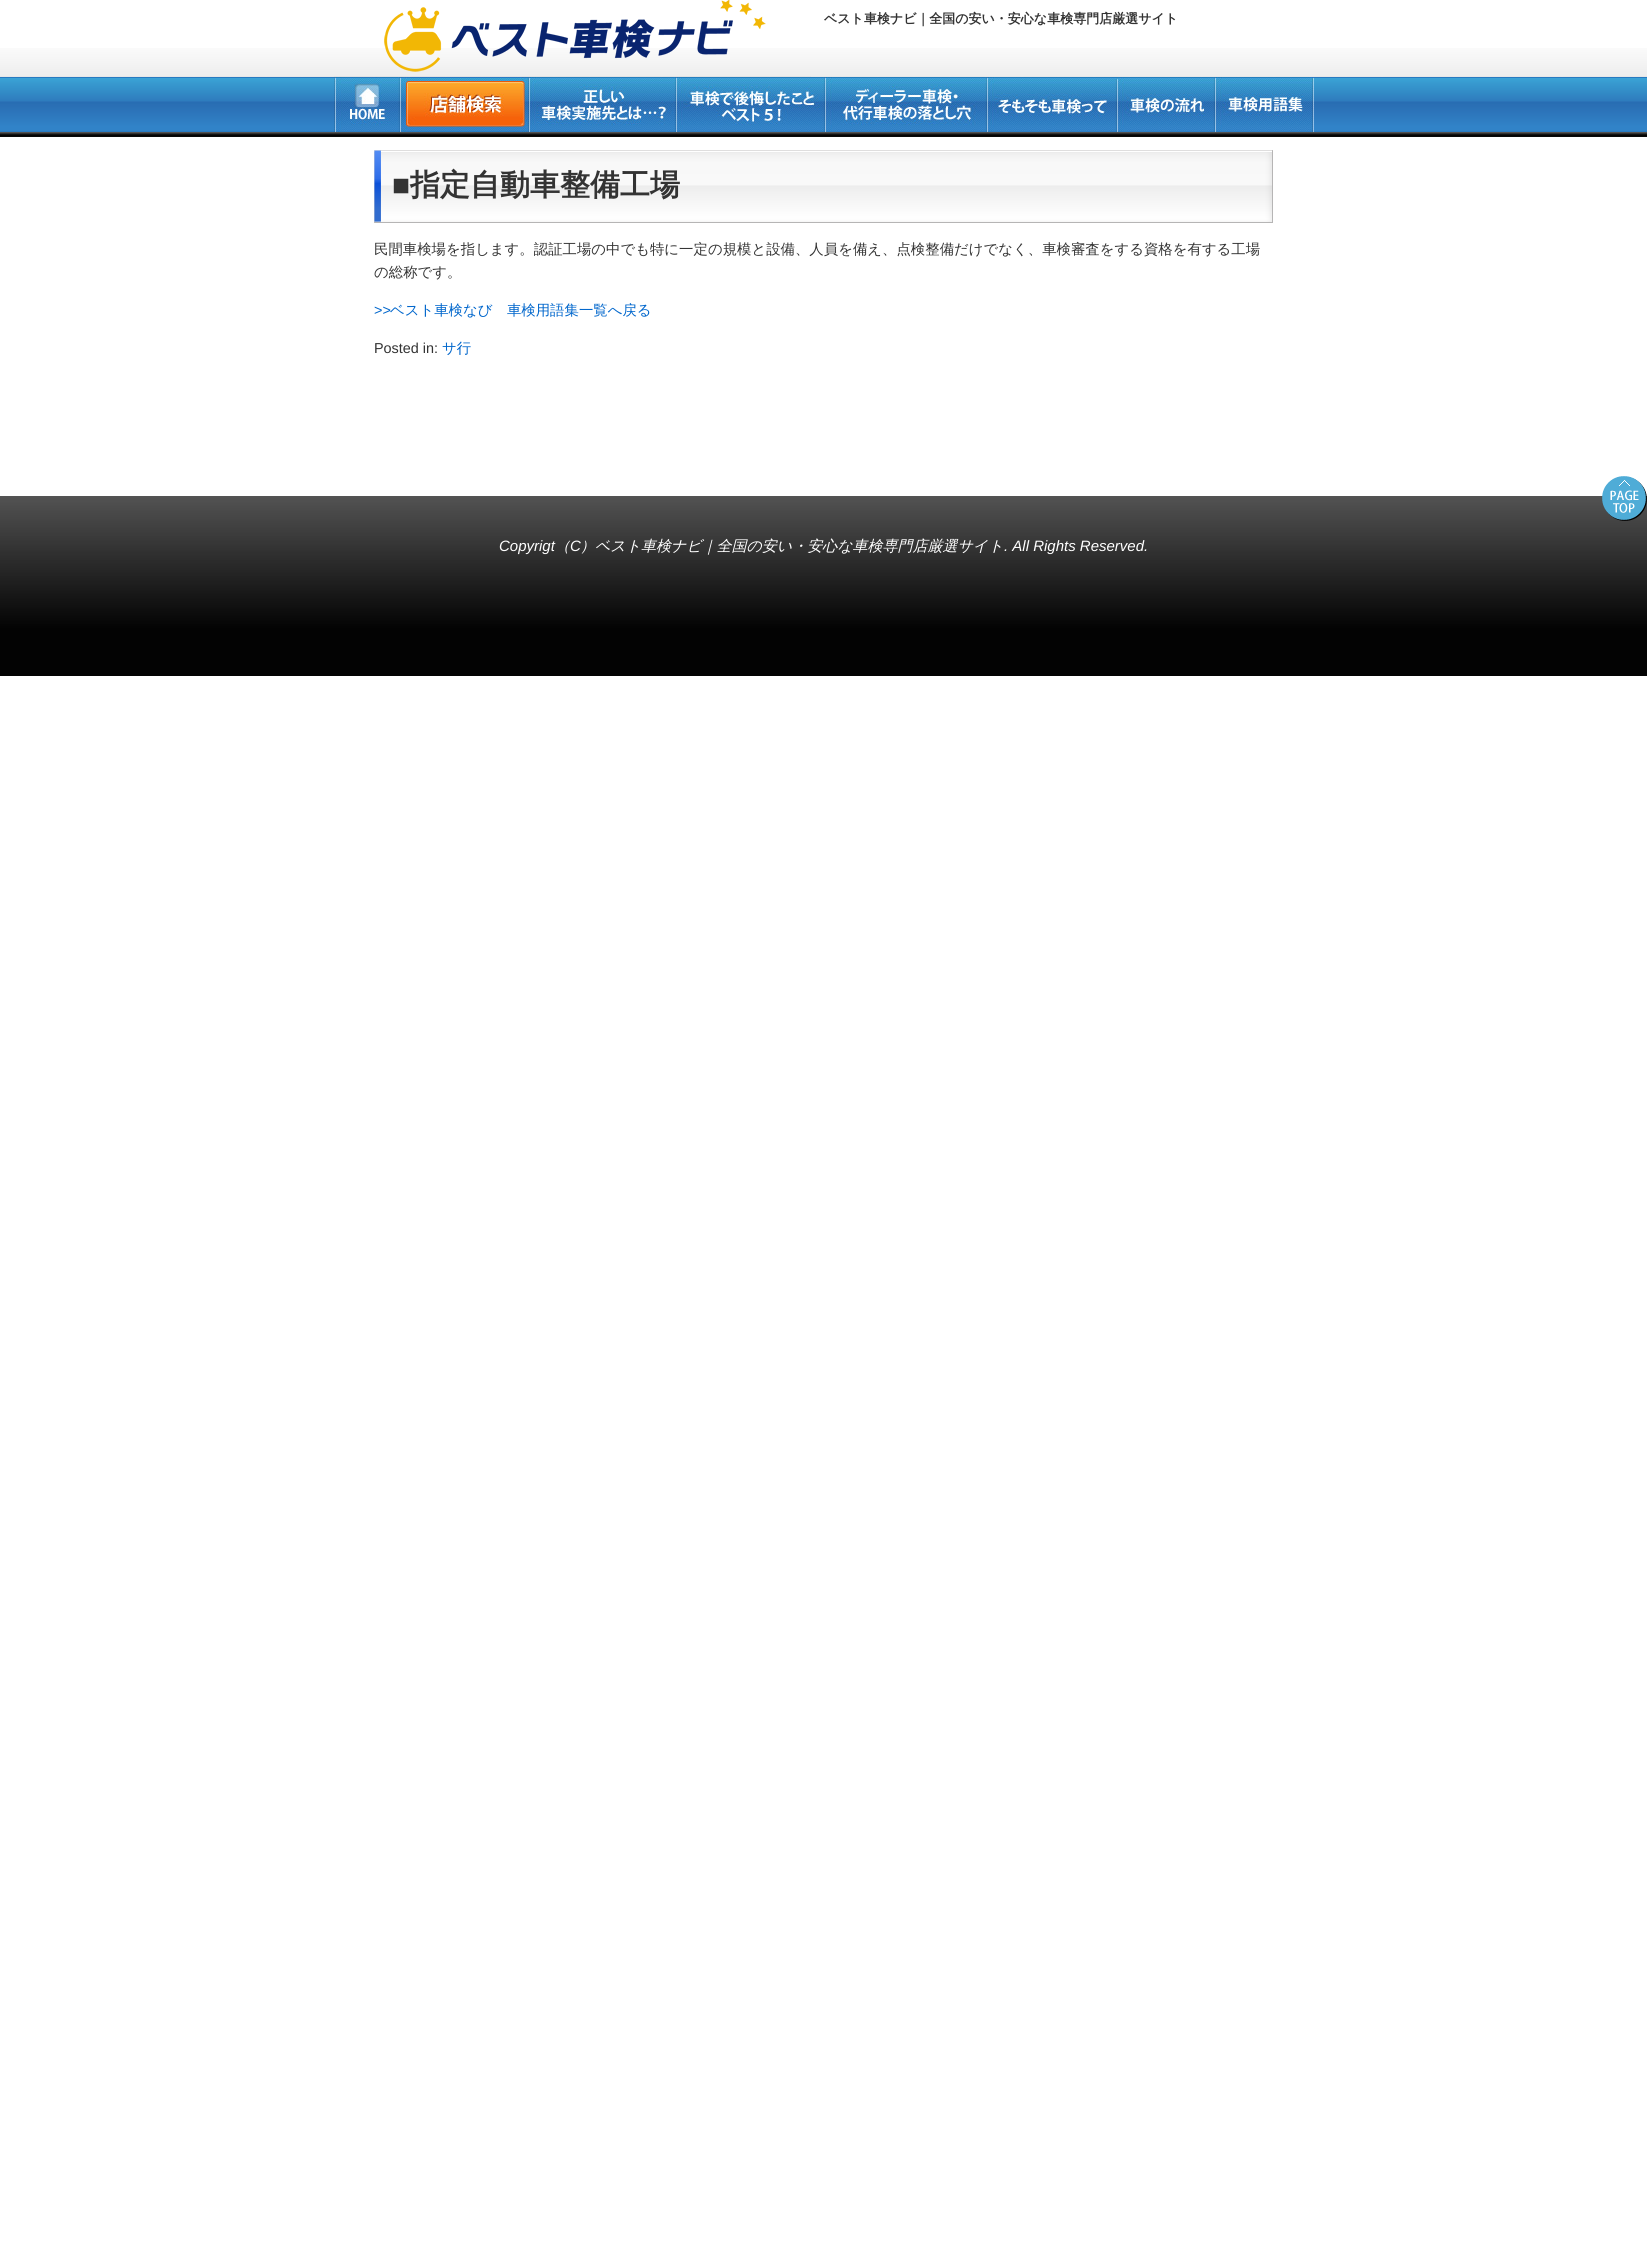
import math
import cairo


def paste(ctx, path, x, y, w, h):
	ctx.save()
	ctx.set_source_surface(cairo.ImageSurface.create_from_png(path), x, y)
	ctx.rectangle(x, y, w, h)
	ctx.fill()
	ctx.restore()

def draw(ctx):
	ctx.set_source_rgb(1, 1, 1)
	ctx.paint()
	paste(ctx, 'media/1.png', 0, 48, 1647, 89)
	paste(ctx, 'media/2.png', 334, 0, 477, 77)
	ctx.select_font_face('WenQuanYi Zen Hei', cairo.FONT_SLANT_NORMAL, cairo.FONT_WEIGHT_BOLD)
	ctx.set_font_size(13)
	ctx.set_source_rgb(0.2, 0.2, 0.2)
	ctx.move_to(824, 23)
	ctx.show_text('ベスト車検ナビ｜全国の安い・安心な車検専門店厳選サイト')
	paste(ctx, 'media/3.png', 334, 77, 66, 55)
	paste(ctx, 'media/4.png', 400, 77, 129, 55)
	paste(ctx, 'media/5.png', 529, 77, 147, 55)
	paste(ctx, 'media/6.png', 676, 77, 149, 55)
	paste(ctx, 'media/7.png', 825, 77, 162, 55)
	paste(ctx, 'media/8.png', 987, 77, 130, 55)
	paste(ctx, 'media/9.png', 1117, 77, 98, 55)
	paste(ctx, 'media/10.png', 1215, 77, 99, 55)
	paste(ctx, 'media/11.png', 374, 150, 899, 73)
	ctx.select_font_face('Liberation Sans', cairo.FONT_SLANT_NORMAL, cairo.FONT_WEIGHT_BOLD)
	ctx.set_font_size(30)
	ctx.move_to(392, 195)
	ctx.show_text('■')
	ctx.select_font_face('WenQuanYi Zen Hei', cairo.FONT_SLANT_NORMAL, cairo.FONT_WEIGHT_BOLD)
	ctx.move_to(410, 195)
	ctx.show_text('指定自動車整備工場')
	ctx.select_font_face('WenQuanYi Zen Hei Medium')
	ctx.set_font_size(14.4)
	ctx.move_to(374, 254)
	ctx.show_text('民間車検場を指します。認証工場の中でも特に一定の規模と設備、人員を備え、点検整備だけでなく、車検審査をする資格を有する工場')
	ctx.move_to(374, 277)
	ctx.show_text('の総称です。')
	ctx.select_font_face('Liberation Sans')
	ctx.set_source_rgb(0, 0.4, 0.8)
	ctx.move_to(374, 315)
	ctx.show_text('>>')
	ctx.select_font_face('WenQuanYi Zen Hei Medium')
	ctx.move_to(390, 315)
	ctx.show_text('ベスト車検なび　車検用語集一覧へ戻る')
	ctx.select_font_face('Liberation Sans')
	ctx.set_source_rgb(0.2, 0.2, 0.2)
	ctx.move_to(374, 353)
	ctx.show_text('Posted in:')
	ctx.select_font_face('WenQuanYi Zen Hei Medium')
	ctx.set_source_rgb(0, 0.4, 0.8)
	ctx.move_to(442, 353)
	ctx.show_text('サ行')
	paste(ctx, 'media/12.png', 0, 496, 1647, 180)
	paste(ctx, 'media/13.png', 1602, 476, 45, 45)
	ctx.select_font_face('Liberation Sans', cairo.FONT_SLANT_ITALIC)
	ctx.set_font_size(15)
	ctx.set_source_rgb(1, 1, 1)
	ctx.move_to(499, 551)
	ctx.show_text('Copyrigt')
	ctx.select_font_face('WenQuanYi Zen Hei Medium', cairo.FONT_SLANT_ITALIC)
	ctx.move_to(555, 551)
	ctx.show_text('（')
	ctx.select_font_face('Liberation Sans', cairo.FONT_SLANT_ITALIC)
	ctx.move_to(570, 551)
	ctx.show_text('C')
	ctx.select_font_face('WenQuanYi Zen Hei Medium', cairo.FONT_SLANT_ITALIC)
	ctx.move_to(580, 551)
	ctx.show_text('）ベスト車検ナビ｜全国の安い・安心な車検専門店厳選サイト')
	ctx.select_font_face('Liberation Sans', cairo.FONT_SLANT_ITALIC)
	ctx.move_to(1004, 551)
	ctx.show_text('. All Rights Reserved.')


surface = cairo.ImageSurface(cairo.FORMAT_RGB24, 1647, 2250)
ctx = cairo.Context(surface)
options = cairo.FontOptions()
options.set_hint_metrics(cairo.HINT_METRICS_OFF)
options.set_hint_style(cairo.HINT_STYLE_NONE)
ctx.set_font_options(options)
ctx.set_miter_limit(4)
draw(ctx)
surface.write_to_png('image.png')
